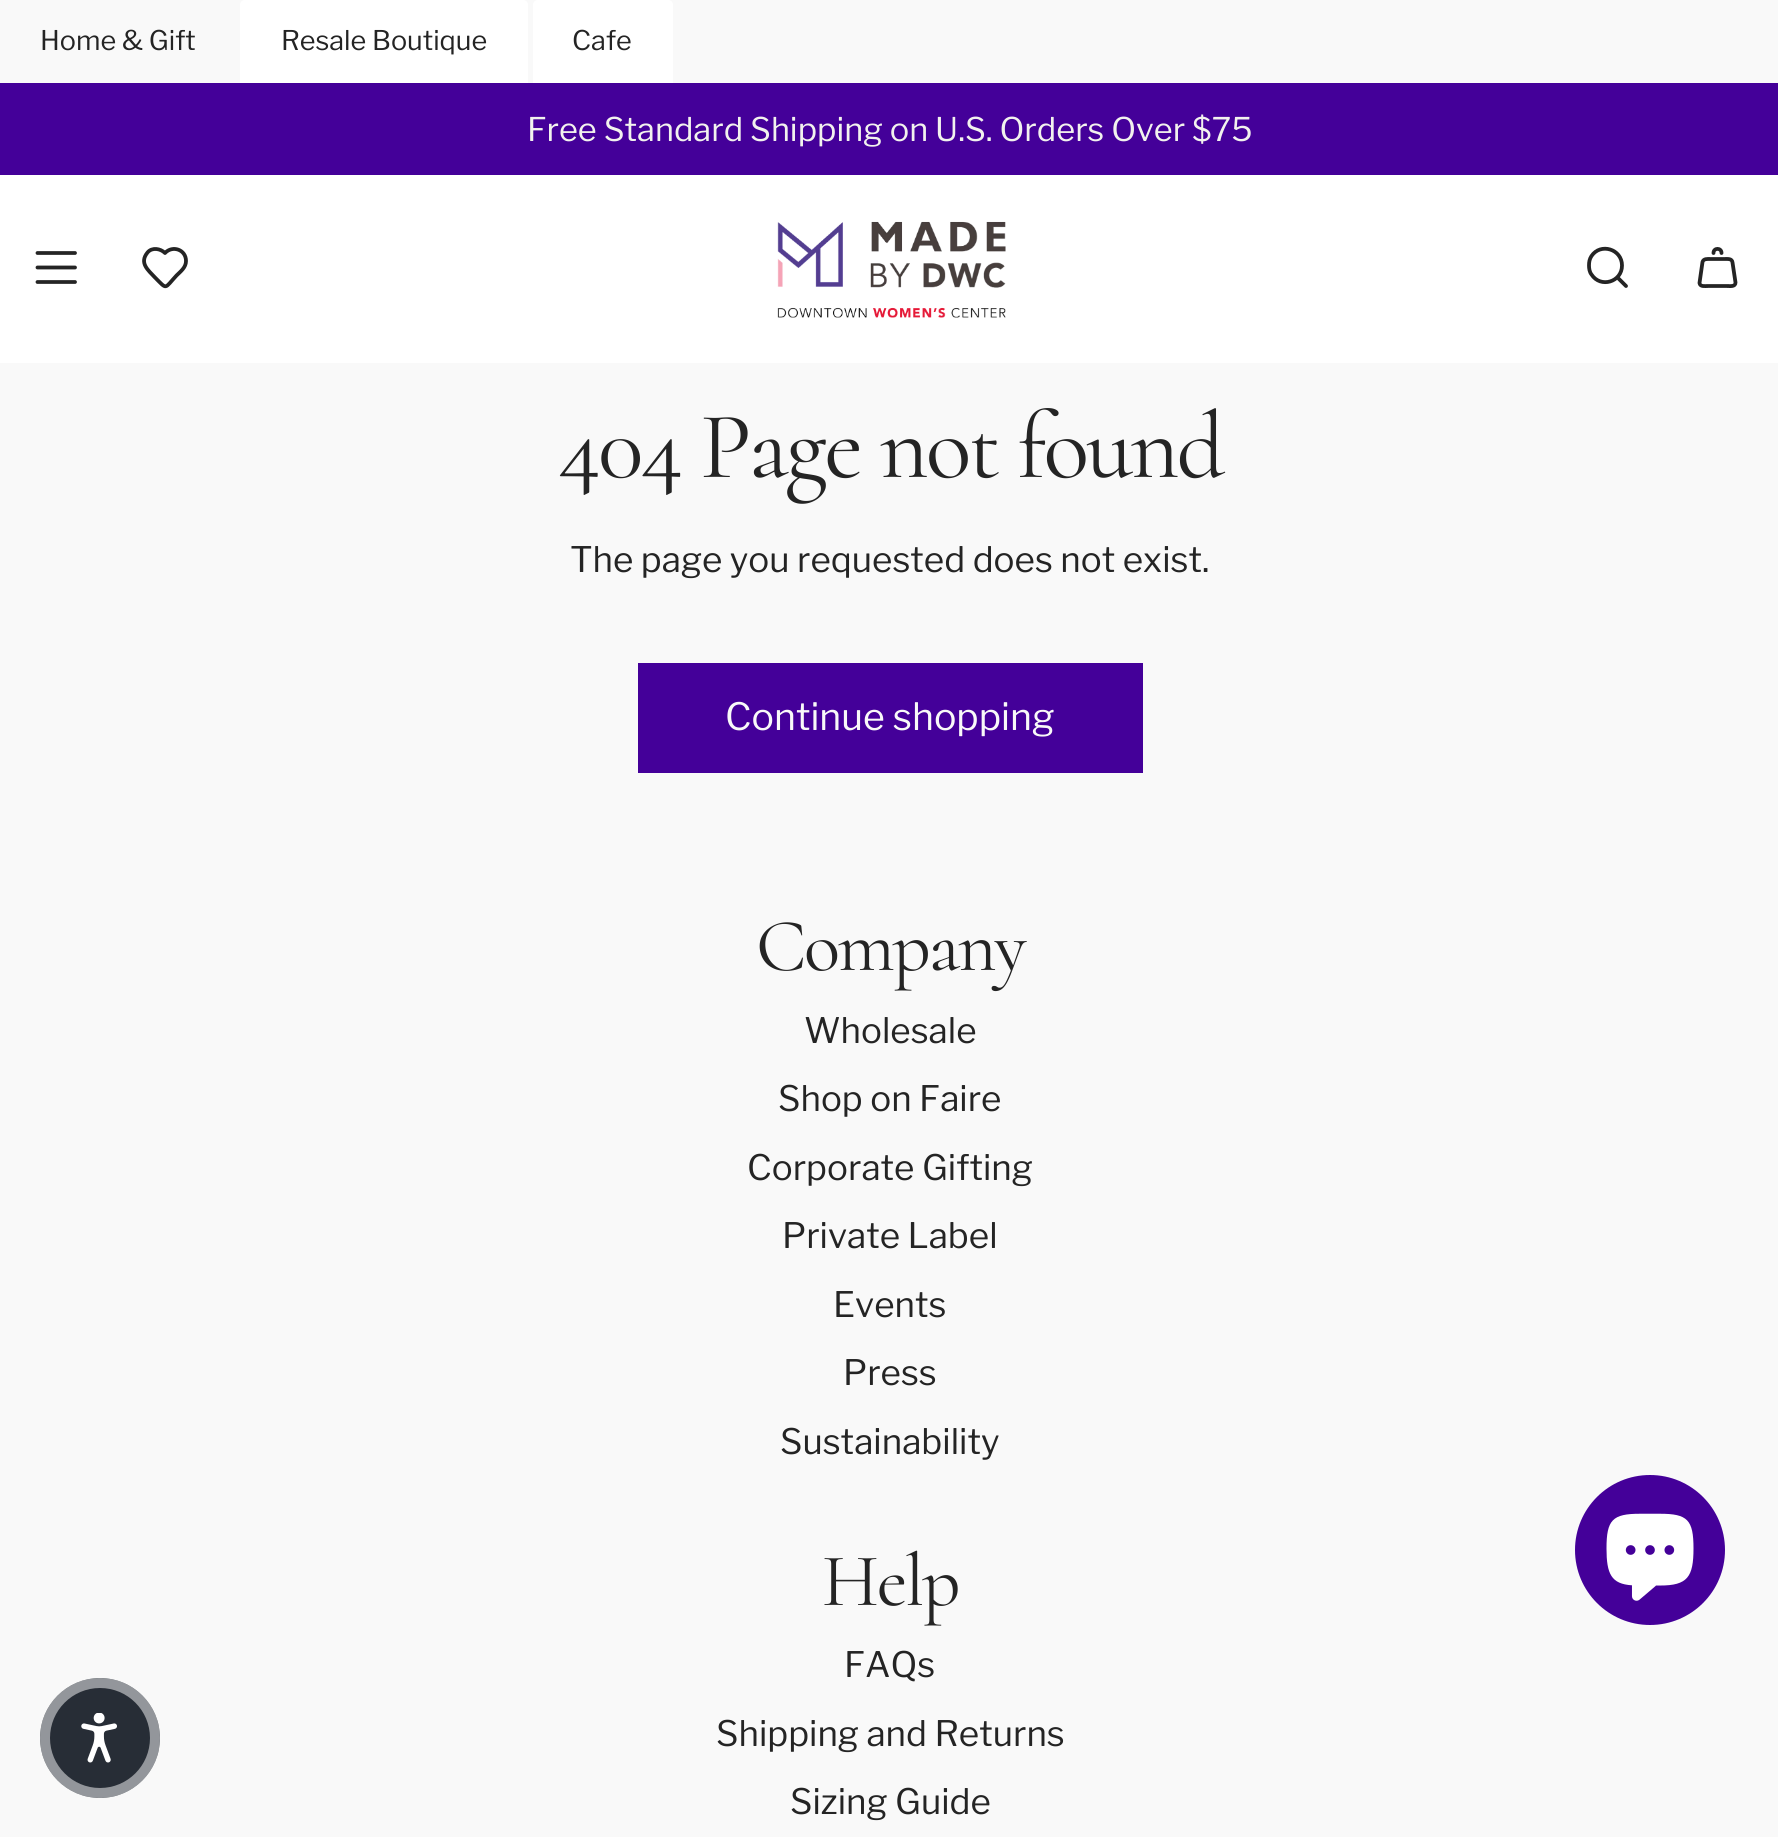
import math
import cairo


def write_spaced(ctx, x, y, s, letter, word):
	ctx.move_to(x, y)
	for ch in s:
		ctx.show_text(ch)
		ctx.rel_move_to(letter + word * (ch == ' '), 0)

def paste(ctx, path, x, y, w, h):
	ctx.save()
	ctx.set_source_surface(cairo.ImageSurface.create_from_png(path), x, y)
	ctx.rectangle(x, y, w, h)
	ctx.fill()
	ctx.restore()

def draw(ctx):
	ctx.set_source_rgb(0.976, 0.976, 0.976)
	ctx.paint()
	ctx.select_font_face('Libre Franklin')
	ctx.set_font_size(27)
	ctx.set_source_rgb(0.141, 0.141, 0.141)
	ctx.move_to(40, 50)
	ctx.show_text('Home & Gift')
	ctx.set_source_rgb(1, 1, 1)
	ctx.new_path()
	ctx.move_to(245, 0)
	ctx.line_to(523, 0)
	ctx.curve_to(526, 0, 528, 2, 528, 5)
	ctx.line_to(528, 83)
	ctx.line_to(240, 83)
	ctx.line_to(240, 5)
	ctx.curve_to(240, 2, 242, 0, 245, 0)
	ctx.close_path()
	ctx.fill()
	ctx.set_source_rgb(0.141, 0.141, 0.141)
	ctx.move_to(281, 50)
	ctx.show_text('Resale Boutique')
	ctx.set_source_rgb(1, 1, 1)
	ctx.new_path()
	ctx.move_to(538, 0)
	ctx.line_to(668, 0)
	ctx.curve_to(671, 0, 673, 2, 673, 5)
	ctx.line_to(673, 83)
	ctx.line_to(533, 83)
	ctx.line_to(533, 5)
	ctx.curve_to(533, 2, 535, 0, 538, 0)
	ctx.close_path()
	ctx.fill()
	ctx.set_source_rgb(0.141, 0.141, 0.141)
	ctx.move_to(572, 50)
	ctx.show_text('Cafe')
	ctx.set_source_rgb(0.267, 0, 0.6)
	ctx.rectangle(0, 83, 1778, 92)
	ctx.fill()
	ctx.set_font_size(32.5)
	ctx.set_source_rgb(0.949, 0.949, 0.933)
	ctx.move_to(527, 141)
	ctx.show_text('Free Standard Shipping on U.S. Orders Over $75')
	ctx.set_source_rgb(1, 1, 1)
	ctx.rectangle(0, 175, 1778, 188)
	ctx.fill()
	ctx.new_path()
	ctx.move_to(37.5, 253)
	ctx.line_to(75, 253)
	ctx.move_to(37.5, 267.5)
	ctx.line_to(75, 267.5)
	ctx.move_to(37.5, 282)
	ctx.line_to(75, 282)
	ctx.set_source_rgb(0.141, 0.141, 0.141)
	ctx.set_line_width(3.8)
	ctx.set_line_cap(cairo.LINE_CAP_ROUND)
	ctx.set_line_join(cairo.LINE_JOIN_ROUND)
	ctx.stroke()
	ctx.new_path()
	ctx.move_to(186, 261)
	ctx.curve_to(186, 267.5, 180.5, 271.5, 176.5, 275.5)
	ctx.curve_to(164, 289, 167.5, 290, 155, 277.5)
	ctx.curve_to(148, 270, 139, 263, 147.5, 252.5)
	ctx.curve_to(152, 247, 160.5, 248.5, 165, 253)
	ctx.curve_to(172.5, 245, 186, 249.5, 186, 261)
	ctx.close_path()
	ctx.set_line_cap(cairo.LINE_CAP_BUTT)
	ctx.stroke()
	paste(ctx, 'media/1.png', 777, 221, 229, 97)
	ctx.new_path()
	ctx.move_to(1618, 278)
	ctx.line_to(1626, 286)
	ctx.move_to(1589, 265.5)
	ctx.curve_to(1589, 268.5, 1589.5, 272, 1591.5, 274.5)
	ctx.curve_to(1600.5, 288.5, 1622, 282, 1622, 265.5)
	ctx.curve_to(1622, 249, 1600.5, 242.5, 1591.5, 256)
	ctx.curve_to(1589.5, 259, 1589, 262, 1589, 265.5)
	ctx.close_path()
	ctx.set_line_cap(cairo.LINE_CAP_ROUND)
	ctx.stroke()
	ctx.new_path()
	ctx.move_to(1721.5, 253)
	ctx.curve_to(1721.5, 247.5, 1713.5, 247.5, 1713.5, 253)
	ctx.move_to(1732.5, 262.5)
	ctx.line_to(1735.5, 282.5)
	ctx.curve_to(1735.5, 287, 1730, 286, 1727, 286)
	ctx.line_to(1708, 286)
	ctx.curve_to(1705, 286, 1700, 287, 1699.5, 283)
	ctx.line_to(1702.5, 262)
	ctx.curve_to(1703.5, 258.5, 1707.5, 259, 1710, 259)
	ctx.line_to(1725, 259)
	ctx.curve_to(1728, 259, 1732, 258.5, 1732.5, 262.5)
	ctx.close_path()
	ctx.stroke()
	ctx.select_font_face('Cormorant')
	ctx.set_font_size(95)
	write_spaced(ctx, 558, 477, '404 Page not found', -2.8, 0)
	ctx.select_font_face('Libre Franklin')
	ctx.set_font_size(35)
	ctx.move_to(570, 572)
	ctx.show_text('The page you requested does not exist.')
	ctx.set_source_rgb(0.267, 0, 0.6)
	ctx.rectangle(638, 663, 505, 110)
	ctx.fill()
	ctx.set_font_size(37.5)
	ctx.set_source_rgb(0.976, 0.976, 0.976)
	ctx.move_to(725, 730)
	ctx.show_text('Continue shopping')
	ctx.select_font_face('Cormorant')
	ctx.set_font_size(75)
	ctx.set_source_rgb(0.141, 0.141, 0.141)
	write_spaced(ctx, 756, 970, 'Company', -2.25, 0)
	ctx.select_font_face('Libre Franklin')
	ctx.set_font_size(35)
	for x, y, s in [
		(804, 1043, 'Wholesale'),
		(778, 1111, 'Shop on Faire'),
		(747, 1180, 'Corporate Gifting'),
		(782, 1248, 'Private Label'),
		(833, 1317, 'Events'),
		(843, 1385, 'Press'),
		(780, 1454, 'Sustainability'),
	]:
		ctx.move_to(x, y)
		ctx.show_text(s)
	ctx.select_font_face('Cormorant')
	ctx.set_font_size(75)
	write_spaced(ctx, 822, 1605, 'Help', -2.25, 0)
	ctx.select_font_face('Libre Franklin')
	ctx.set_font_size(35)
	for x, y, s in [
		(844, 1677, 'FAQs'),
		(716, 1746, 'Shipping and Returns'),
		(790, 1814, 'Sizing Guide'),
	]:
		ctx.move_to(x, y)
		ctx.show_text(s)
	ctx.set_source_rgb(0.267, 0, 0.6)
	ctx.new_path()
	ctx.arc(1650, 1550, 75, 0, 2 * math.pi)
	ctx.fill()
	paste(ctx, 'media/2.png', 1606, 1513, 88, 88)
	ctx.set_source_rgb(0.153, 0.176, 0.212)
	ctx.arc(100, 1738, 60, 0, 2 * math.pi)
	ctx.fill()
	ctx.arc(100, 1738, 55, 0, 2 * math.pi)
	ctx.set_source_rgba(1, 1, 1, 0.5)
	ctx.set_line_width(10)
	ctx.set_line_cap(cairo.LINE_CAP_BUTT)
	ctx.set_line_join(cairo.LINE_JOIN_MITER)
	ctx.stroke()
	paste(ctx, 'media/3.png', 81, 1713, 36, 50)


surface = cairo.ImageSurface(cairo.FORMAT_RGB24, 1778, 1837)
ctx = cairo.Context(surface)
options = cairo.FontOptions()
options.set_hint_metrics(cairo.HINT_METRICS_OFF)
options.set_hint_style(cairo.HINT_STYLE_NONE)
ctx.set_font_options(options)
ctx.set_miter_limit(4)
draw(ctx)
surface.write_to_png('image.png')
